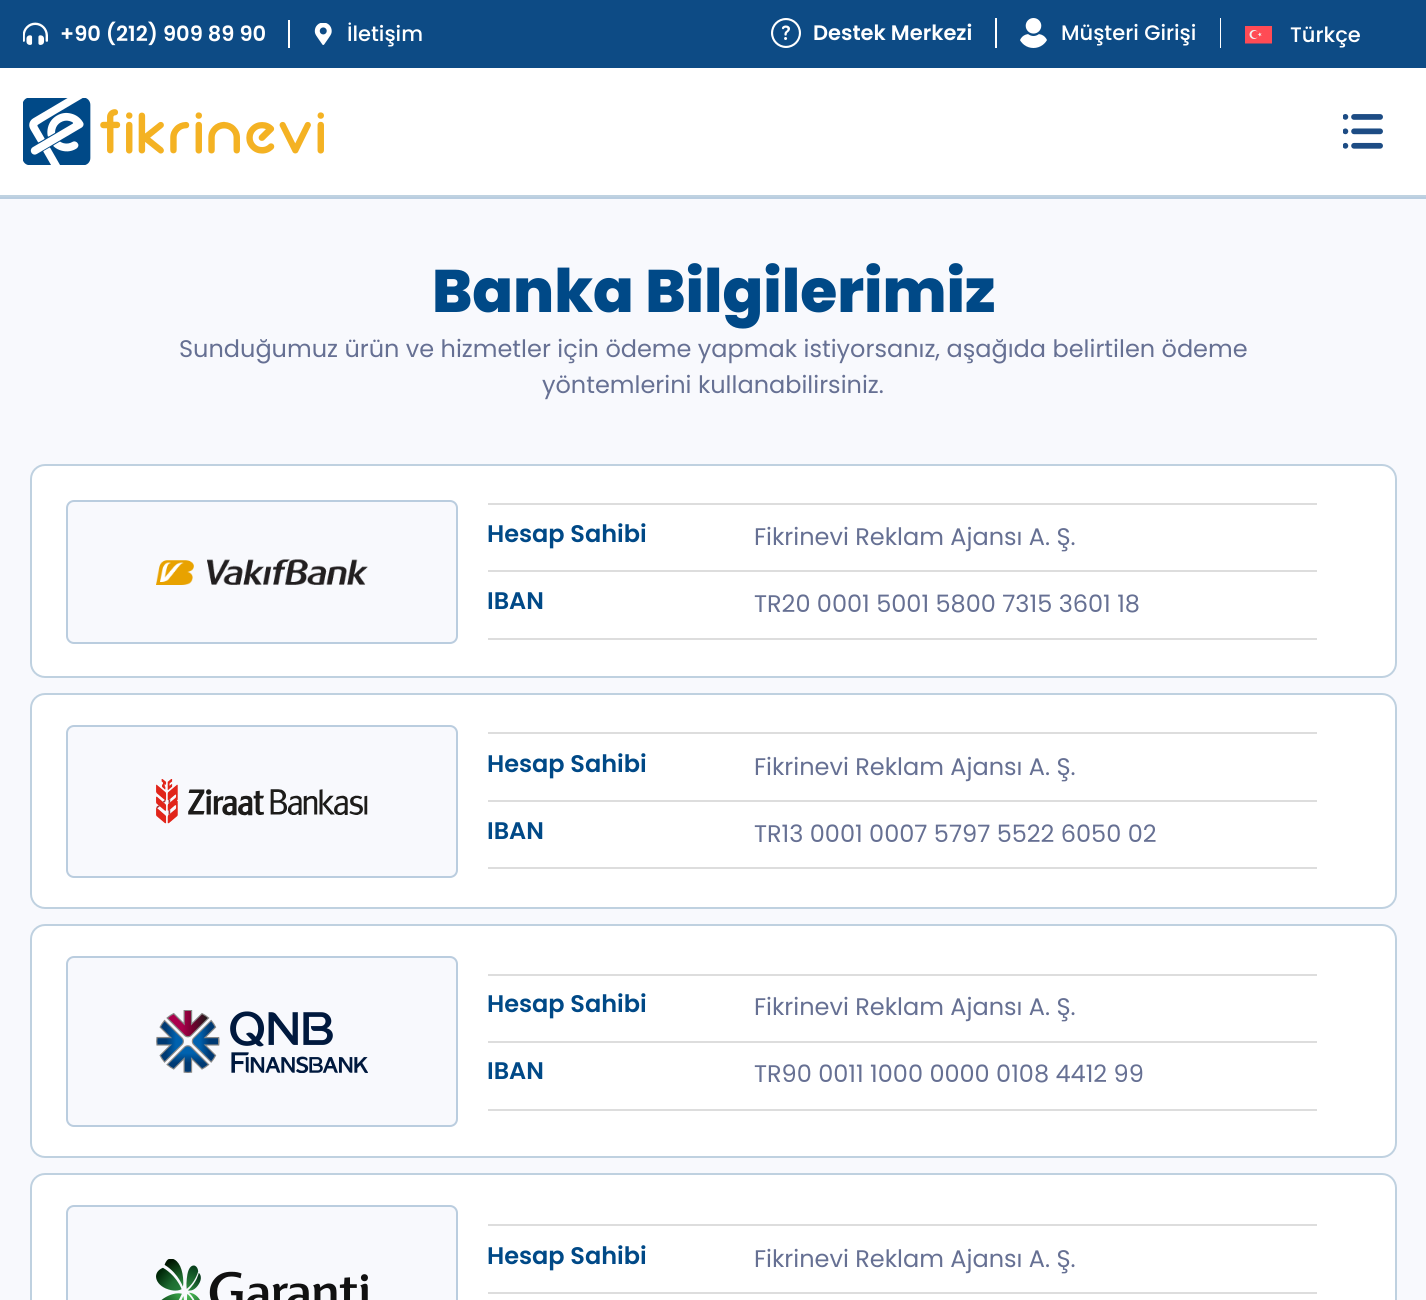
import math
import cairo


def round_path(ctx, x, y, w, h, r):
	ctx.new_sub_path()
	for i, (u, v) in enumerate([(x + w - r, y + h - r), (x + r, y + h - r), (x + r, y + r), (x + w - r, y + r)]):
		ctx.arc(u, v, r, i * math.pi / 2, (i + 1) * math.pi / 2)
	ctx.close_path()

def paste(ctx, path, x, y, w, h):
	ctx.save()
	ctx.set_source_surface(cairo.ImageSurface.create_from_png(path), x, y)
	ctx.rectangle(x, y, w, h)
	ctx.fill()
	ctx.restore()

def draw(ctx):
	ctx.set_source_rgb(0.969, 0.976, 0.992)
	ctx.paint()
	ctx.set_source_rgb(0.051, 0.294, 0.522)
	ctx.rectangle(0, 0, 1426, 68)
	ctx.fill()
	ctx.set_source_rgb(1, 1, 1)
	ctx.rectangle(288, 20, 2, 28)
	ctx.fill()
	paste(ctx, 'media/1.png', 23, 22, 25, 23)
	ctx.select_font_face('Poppins SemiBold')
	ctx.set_font_size(21)
	ctx.move_to(60, 41)
	ctx.show_text('+90 (212) 909 89 90')
	paste(ctx, 'media/2.png', 314, 23, 18, 22)
	ctx.select_font_face('Poppins Medium')
	ctx.move_to(347, 41)
	ctx.show_text('İletişim')
	paste(ctx, 'media/3.png', 771, 18, 30, 30)
	ctx.select_font_face('Poppins SemiBold')
	ctx.move_to(813, 40)
	ctx.show_text('Destek Merkezi')
	ctx.rectangle(1220, 18, 1, 30)
	ctx.fill()
	ctx.rectangle(995, 18, 2, 30)
	ctx.fill()
	paste(ctx, 'media/4.png', 1020, 18, 27, 30)
	ctx.select_font_face('Poppins Medium')
	ctx.move_to(1061, 40)
	ctx.show_text('Müşteri Girişi')
	paste(ctx, 'media/5.png', 1245, 26, 27, 18)
	ctx.move_to(1290, 42)
	ctx.show_text('Türkçe')
	ctx.rectangle(0, 68, 1426, 127)
	ctx.fill()
	ctx.set_source_rgb(0.749, 0.824, 0.882)
	ctx.rectangle(0, 195, 1426, 2)
	ctx.fill()
	paste(ctx, 'media/6.png', 23, 98, 301, 67)
	paste(ctx, 'media/7.png', 1343, 114, 40, 35)
	ctx.set_source_rgb(0.725, 0.804, 0.878)
	ctx.rectangle(0, 197, 1426, 2)
	ctx.fill()
	ctx.select_font_face('Poppins ExtraBold')
	ctx.set_font_size(60)
	ctx.set_source_rgb(0, 0.286, 0.529)
	ctx.move_to(432, 312)
	ctx.show_text('Banka Bilgilerimiz')
	ctx.select_font_face('Poppins')
	ctx.set_font_size(24)
	ctx.set_source_rgb(0.4, 0.439, 0.576)
	ctx.move_to(179, 357)
	ctx.show_text('Sunduğumuz ürün ve hizmetler için ödeme yapmak istiyorsanız, aşağıda belirtilen ödeme')
	ctx.move_to(542, 393)
	ctx.show_text('yöntemlerini kullanabilirsiniz.')
	ctx.set_source_rgb(1, 1, 1)
	round_path(ctx, 30, 464, 1367, 214, 15)
	ctx.fill()
	round_path(ctx, 31, 465, 1365, 212, 14)
	ctx.set_source_rgba(0, 0.286, 0.529, 0.25)
	ctx.stroke()
	ctx.set_source_rgb(0.969, 0.976, 0.992)
	round_path(ctx, 66, 500, 392, 144, 8)
	ctx.fill()
	round_path(ctx, 67, 501, 390, 142, 7)
	ctx.set_source_rgba(0, 0.286, 0.529, 0.25)
	ctx.stroke()
	paste(ctx, 'media/8.png', 156, 559, 212, 26)
	ctx.set_source_rgb(0.867, 0.867, 0.867)
	ctx.rectangle(488, 503, 829, 2)
	ctx.fill()
	ctx.select_font_face('Poppins SemiBold')
	ctx.set_source_rgb(0, 0.286, 0.529)
	ctx.move_to(487, 542)
	ctx.show_text('Hesap Sahibi')
	ctx.select_font_face('Poppins')
	ctx.set_source_rgb(0.4, 0.439, 0.576)
	ctx.move_to(754, 545)
	ctx.show_text('Fikrinevi Reklam Ajansı A. Ş.')
	ctx.set_source_rgb(0.867, 0.867, 0.867)
	ctx.rectangle(488, 570, 829, 2)
	ctx.fill()
	ctx.select_font_face('Poppins SemiBold')
	ctx.set_source_rgb(0, 0.286, 0.529)
	ctx.move_to(487, 609)
	ctx.show_text('IBAN')
	ctx.select_font_face('Poppins')
	ctx.set_source_rgb(0.4, 0.439, 0.576)
	ctx.move_to(754, 612)
	ctx.show_text('TR20 0001 5001 5800 7315 3601 18')
	ctx.set_source_rgb(0.867, 0.867, 0.867)
	ctx.rectangle(488, 638, 829, 2)
	ctx.fill()
	ctx.set_source_rgb(1, 1, 1)
	round_path(ctx, 30, 693, 1367, 216, 15)
	ctx.fill()
	round_path(ctx, 31, 694, 1365, 214, 14)
	ctx.set_source_rgba(0, 0.286, 0.529, 0.25)
	ctx.stroke()
	ctx.set_source_rgb(0.969, 0.976, 0.992)
	round_path(ctx, 66, 725, 392, 153, 8)
	ctx.fill()
	round_path(ctx, 67, 726, 390, 151, 7)
	ctx.set_source_rgba(0, 0.286, 0.529, 0.25)
	ctx.stroke()
	paste(ctx, 'media/9.png', 156, 779, 212, 45)
	ctx.set_source_rgb(0.867, 0.867, 0.867)
	ctx.rectangle(488, 732, 829, 2)
	ctx.fill()
	ctx.select_font_face('Poppins SemiBold')
	ctx.set_source_rgb(0, 0.286, 0.529)
	ctx.move_to(487, 772)
	ctx.show_text('Hesap Sahibi')
	ctx.select_font_face('Poppins')
	ctx.set_source_rgb(0.4, 0.439, 0.576)
	ctx.move_to(754, 775)
	ctx.show_text('Fikrinevi Reklam Ajansı A. Ş.')
	ctx.set_source_rgb(0.867, 0.867, 0.867)
	ctx.rectangle(488, 800, 829, 2)
	ctx.fill()
	ctx.select_font_face('Poppins SemiBold')
	ctx.set_source_rgb(0, 0.286, 0.529)
	ctx.move_to(487, 839)
	ctx.show_text('IBAN')
	ctx.select_font_face('Poppins')
	ctx.set_source_rgb(0.4, 0.439, 0.576)
	ctx.move_to(754, 842)
	ctx.show_text('TR13 0001 0007 5797 5522 6050 02')
	ctx.set_source_rgb(0.867, 0.867, 0.867)
	ctx.rectangle(488, 867, 829, 2)
	ctx.fill()
	ctx.set_source_rgb(1, 1, 1)
	round_path(ctx, 30, 924, 1367, 234, 15)
	ctx.fill()
	round_path(ctx, 31, 925, 1365, 232, 14)
	ctx.set_source_rgba(0, 0.286, 0.529, 0.25)
	ctx.stroke()
	ctx.set_source_rgb(0.969, 0.976, 0.992)
	round_path(ctx, 66, 956, 392, 171, 8)
	ctx.fill()
	round_path(ctx, 67, 957, 390, 169, 7)
	ctx.set_source_rgba(0, 0.286, 0.529, 0.25)
	ctx.stroke()
	paste(ctx, 'media/10.png', 156, 1010, 212, 63)
	ctx.set_source_rgb(0.867, 0.867, 0.867)
	ctx.rectangle(488, 974, 829, 2)
	ctx.fill()
	ctx.select_font_face('Poppins SemiBold')
	ctx.set_source_rgb(0, 0.286, 0.529)
	ctx.move_to(487, 1012)
	ctx.show_text('Hesap Sahibi')
	ctx.select_font_face('Poppins')
	ctx.set_source_rgb(0.4, 0.439, 0.576)
	ctx.move_to(754, 1015)
	ctx.show_text('Fikrinevi Reklam Ajansı A. Ş.')
	ctx.set_source_rgb(0.867, 0.867, 0.867)
	ctx.rectangle(488, 1041, 829, 2)
	ctx.fill()
	ctx.select_font_face('Poppins SemiBold')
	ctx.set_source_rgb(0, 0.286, 0.529)
	ctx.move_to(487, 1079)
	ctx.show_text('IBAN')
	ctx.select_font_face('Poppins')
	ctx.set_source_rgb(0.4, 0.439, 0.576)
	ctx.move_to(754, 1082)
	ctx.show_text('TR90 0011 1000 0000 0108 4412 99')
	ctx.set_source_rgb(0.867, 0.867, 0.867)
	ctx.rectangle(488, 1109, 829, 2)
	ctx.fill()
	ctx.set_source_rgb(1, 1, 1)
	round_path(ctx, 30, 1173, 1367, 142, 15)
	ctx.fill()
	round_path(ctx, 31, 1174, 1365, 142, 14)
	ctx.set_source_rgba(0, 0.286, 0.529, 0.25)
	ctx.stroke()
	ctx.set_source_rgb(0.969, 0.976, 0.992)
	round_path(ctx, 66, 1205, 392, 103, 8)
	ctx.fill()
	round_path(ctx, 67, 1206, 390, 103, 7)
	ctx.set_source_rgba(0, 0.286, 0.529, 0.25)
	ctx.stroke()
	paste(ctx, 'media/11.png', 156, 1259, 212, 41)
	ctx.set_source_rgb(0.867, 0.867, 0.867)
	ctx.rectangle(488, 1224, 829, 2)
	ctx.fill()
	ctx.select_font_face('Poppins SemiBold')
	ctx.set_source_rgb(0, 0.286, 0.529)
	ctx.move_to(487, 1264)
	ctx.show_text('Hesap Sahibi')
	ctx.select_font_face('Poppins')
	ctx.set_source_rgb(0.4, 0.439, 0.576)
	ctx.move_to(754, 1267)
	ctx.show_text('Fikrinevi Reklam Ajansı A. Ş.')
	ctx.set_source_rgb(0.867, 0.867, 0.867)
	ctx.rectangle(488, 1292, 829, 2)
	ctx.fill()


surface = cairo.ImageSurface(cairo.FORMAT_RGB24, 1426, 1300)
ctx = cairo.Context(surface)
options = cairo.FontOptions()
options.set_hint_metrics(cairo.HINT_METRICS_OFF)
options.set_hint_style(cairo.HINT_STYLE_NONE)
ctx.set_font_options(options)
ctx.set_miter_limit(4)
draw(ctx)
surface.write_to_png('image.png')
